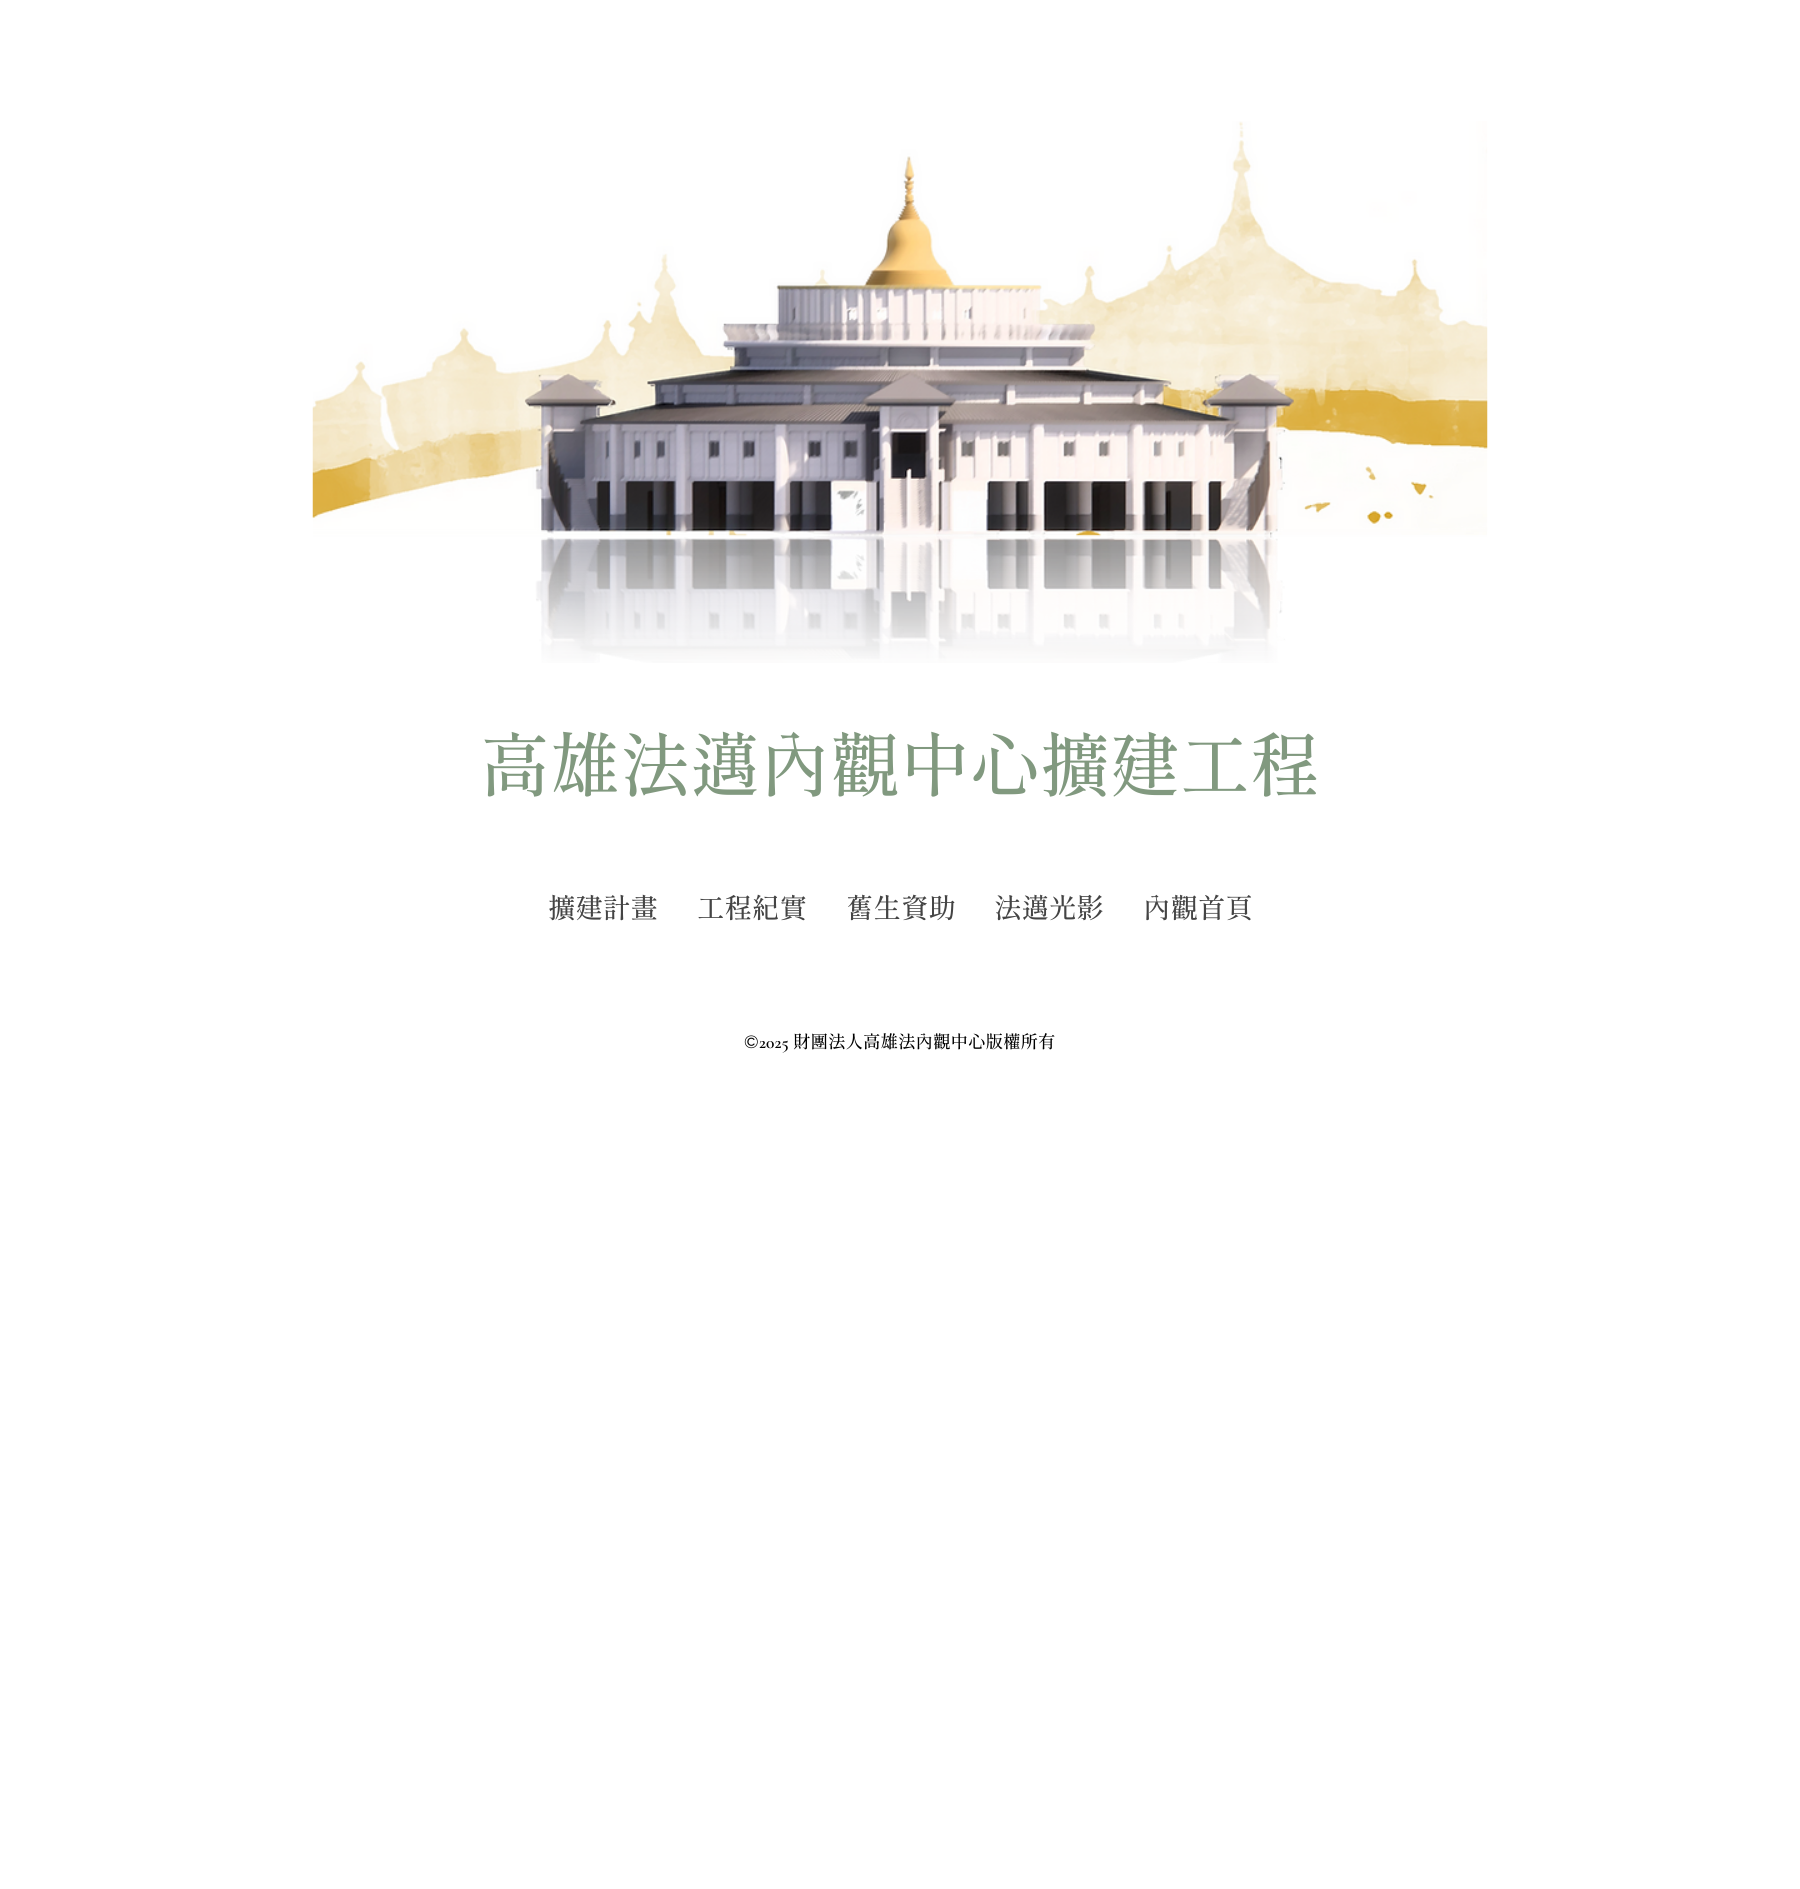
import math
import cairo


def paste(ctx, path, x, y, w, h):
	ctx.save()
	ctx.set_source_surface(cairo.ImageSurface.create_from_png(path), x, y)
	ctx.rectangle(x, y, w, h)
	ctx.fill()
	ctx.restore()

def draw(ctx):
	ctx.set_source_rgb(1, 1, 1)
	ctx.paint()
	paste(ctx, 'media/1.png', 312, 121, 1176, 542)
	ctx.select_font_face('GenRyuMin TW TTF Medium')
	ctx.set_font_size(70)
	ctx.set_source_rgb(0.506, 0.6, 0.498)
	ctx.move_to(480, 791)
	ctx.show_text('高雄法邁內觀中心擴建工程')
	ctx.set_font_size(27.5)
	ctx.set_source_rgb(0.267, 0.267, 0.267)
	for x, y, s in [
		(548, 918, '擴建計畫'),
		(697, 918, '工程紀實'),
		(846, 918, '舊生資助'),
		(994, 918, '法邁光影'),
		(1143, 918, '內觀首頁'),
	]:
		ctx.move_to(x, y)
		ctx.show_text(s)
	ctx.select_font_face('Raleway')
	ctx.set_font_size(17.5)
	ctx.set_source_rgb(0, 0, 0)
	ctx.move_to(744, 1048)
	ctx.show_text('©')
	ctx.select_font_face('Cormorant Garamond SemiBold')
	ctx.move_to(759, 1048)
	ctx.show_text('2025')
	ctx.select_font_face('GenRyuMin TW TTF Medium')
	ctx.move_to(793, 1048)
	ctx.show_text('財團法人高雄法內觀中心版權所有')


surface = cairo.ImageSurface(cairo.FORMAT_RGB24, 1800, 1889)
ctx = cairo.Context(surface)
options = cairo.FontOptions()
options.set_hint_metrics(cairo.HINT_METRICS_OFF)
options.set_hint_style(cairo.HINT_STYLE_NONE)
ctx.set_font_options(options)
ctx.set_miter_limit(4)
draw(ctx)
surface.write_to_png('image.png')
